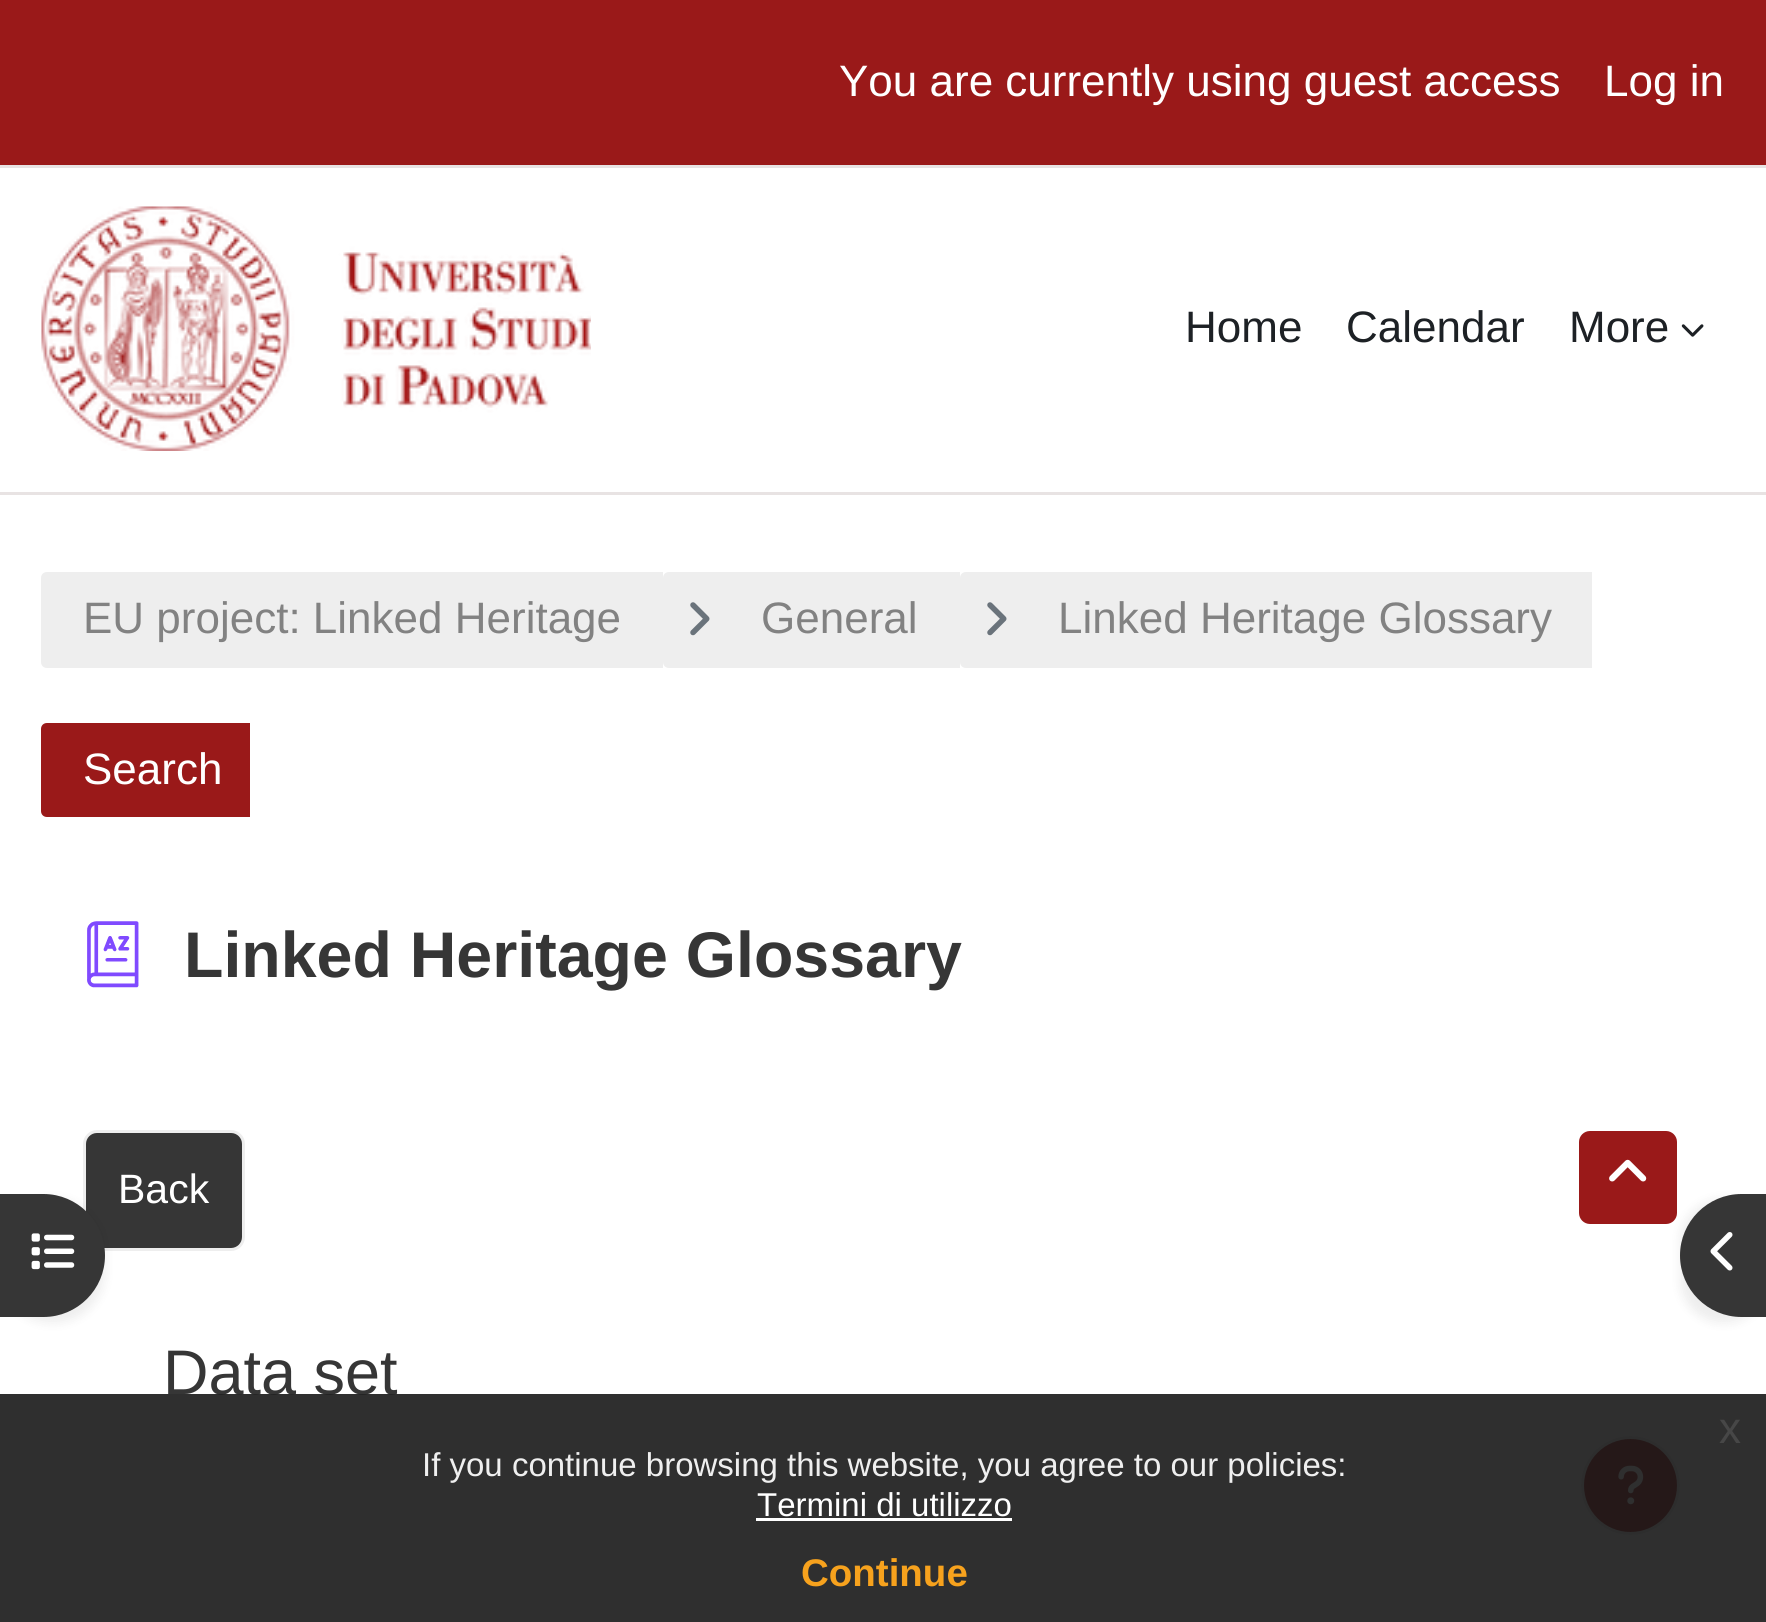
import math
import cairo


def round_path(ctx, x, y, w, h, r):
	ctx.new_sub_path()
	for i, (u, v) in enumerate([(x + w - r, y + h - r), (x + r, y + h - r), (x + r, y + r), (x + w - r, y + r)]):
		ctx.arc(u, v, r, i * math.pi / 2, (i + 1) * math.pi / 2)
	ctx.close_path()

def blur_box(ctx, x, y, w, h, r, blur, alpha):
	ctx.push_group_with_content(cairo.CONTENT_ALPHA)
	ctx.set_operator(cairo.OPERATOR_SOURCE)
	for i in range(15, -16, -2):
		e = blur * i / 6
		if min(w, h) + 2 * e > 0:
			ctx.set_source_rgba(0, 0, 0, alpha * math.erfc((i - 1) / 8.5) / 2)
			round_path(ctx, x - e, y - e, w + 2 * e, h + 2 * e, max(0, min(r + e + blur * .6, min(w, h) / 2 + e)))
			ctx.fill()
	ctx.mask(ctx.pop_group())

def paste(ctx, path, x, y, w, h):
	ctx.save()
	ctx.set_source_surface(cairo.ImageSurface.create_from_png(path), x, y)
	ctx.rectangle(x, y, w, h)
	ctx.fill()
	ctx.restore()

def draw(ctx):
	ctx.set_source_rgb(1, 1, 1)
	ctx.paint()
	ctx.set_source_rgb(0.604, 0.098, 0.098)
	ctx.rectangle(0, 0, 1766, 165)
	ctx.fill()
	ctx.set_source_rgb(0.91, 0.89, 0.89)
	ctx.rectangle(0, 165, 1766, 3)
	ctx.fill()
	ctx.select_font_face('Liberation Sans')
	ctx.set_font_size(44)
	ctx.set_source_rgb(1, 1, 1)
	ctx.move_to(839, 96)
	ctx.show_text('You are currently using guest access')
	ctx.move_to(1604, 96)
	ctx.show_text('Log in')
	ctx.set_source_rgb(0.91, 0.89, 0.89)
	ctx.rectangle(0, 492, 1766, 3)
	ctx.fill()
	paste(ctx, 'media/1.png', 41, 206, 550, 245)
	ctx.set_source_rgb(0.114, 0.129, 0.145)
	for x, y, s in [
		(1185, 342, 'Home'),
		(1346, 342, 'Calendar'),
		(1569, 342, 'More'),
	]:
		ctx.move_to(x, y)
		ctx.show_text(s)
	paste(ctx, 'media/2.png', 1681, 324, 23, 13)
	ctx.set_source_rgb(0.933, 0.933, 0.933)
	ctx.new_path()
	ctx.move_to(47, 572)
	ctx.line_to(663, 572)
	ctx.line_to(663, 668)
	ctx.line_to(47, 668)
	ctx.curve_to(43.5, 668, 41, 665.5, 41, 662)
	ctx.line_to(41, 578)
	ctx.curve_to(41, 574.5, 43.5, 572, 47, 572)
	ctx.close_path()
	ctx.fill()
	ctx.set_source_rgb(0.51, 0.51, 0.51)
	ctx.move_to(83, 633)
	ctx.show_text('EU project: Linked Heritage')
	ctx.set_source_rgb(0.933, 0.933, 0.933)
	ctx.new_path()
	ctx.move_to(669, 572)
	ctx.line_to(960, 572)
	ctx.line_to(960, 668)
	ctx.line_to(669, 668)
	ctx.curve_to(665.5, 668, 663, 665.5, 663, 662)
	ctx.line_to(663, 578)
	ctx.curve_to(663, 574.5, 665.5, 572, 669, 572)
	ctx.close_path()
	ctx.fill()
	paste(ctx, 'media/3.png', 690, 602, 20, 34)
	ctx.set_source_rgb(0.51, 0.51, 0.51)
	ctx.move_to(761, 633)
	ctx.show_text('General')
	ctx.set_source_rgb(0.933, 0.933, 0.933)
	ctx.new_path()
	ctx.move_to(966, 572)
	ctx.line_to(1592, 572)
	ctx.line_to(1592, 668)
	ctx.line_to(966, 668)
	ctx.curve_to(962.5, 668, 960, 665.5, 960, 662)
	ctx.line_to(960, 578)
	ctx.curve_to(960, 574.5, 962.5, 572, 966, 572)
	ctx.close_path()
	ctx.fill()
	paste(ctx, 'media/3.png', 987, 602, 20, 34)
	ctx.set_source_rgb(0.51, 0.51, 0.51)
	ctx.move_to(1058, 633)
	ctx.show_text('Linked Heritage Glossary')
	ctx.set_source_rgb(0.604, 0.098, 0.098)
	ctx.new_path()
	ctx.move_to(47, 723)
	ctx.line_to(250, 723)
	ctx.line_to(250, 817)
	ctx.line_to(47, 817)
	ctx.curve_to(43.5, 817, 41, 814.5, 41, 811)
	ctx.line_to(41, 729)
	ctx.curve_to(41, 725.5, 43.5, 723, 47, 723)
	ctx.close_path()
	ctx.fill()
	ctx.set_source_rgb(1, 1, 1)
	ctx.move_to(83, 784)
	ctx.show_text('Search')
	paste(ctx, 'media/4.png', 87, 921, 52, 67)
	ctx.select_font_face('Liberation Sans', cairo.FONT_SLANT_NORMAL, cairo.FONT_WEIGHT_BOLD)
	ctx.set_font_size(64.5)
	ctx.set_source_rgb(0.212, 0.212, 0.212)
	ctx.move_to(184, 977)
	ctx.show_text('Linked Heritage Glossary')
	round_path(ctx, 84.5, 1131.5, 159, 118, 12.5)
	ctx.fill_preserve()
	ctx.set_source_rgb(0.933, 0.933, 0.933)
	ctx.set_line_width(3)
	ctx.stroke()
	ctx.select_font_face('Liberation Sans')
	ctx.set_font_size(41)
	ctx.set_source_rgb(1, 1, 1)
	ctx.move_to(118, 1203)
	ctx.show_text('Back')
	ctx.set_font_size(63)
	ctx.set_source_rgb(0.212, 0.212, 0.212)
	ctx.move_to(163, 1394)
	ctx.show_text('Data set')
	ctx.set_source_rgb(0, 0, 0)
	blur_box(ctx, 0, 1199, 105, 124, 62, 5.5, 0.07)
	ctx.set_source_rgb(0.212, 0.212, 0.212)
	ctx.new_path()
	ctx.move_to(1.5, 1195.5)
	ctx.line_to(43.5, 1195.5)
	ctx.curve_to(76.5, 1195.5, 103.5, 1222.5, 103.5, 1255.5)
	ctx.curve_to(103.5, 1288.5, 76.5, 1315.5, 43.5, 1315.5)
	ctx.line_to(1.5, 1315.5)
	ctx.close_path()
	ctx.fill_preserve()
	ctx.stroke()
	paste(ctx, 'media/5.png', 31, 1233, 44, 37)
	ctx.set_source_rgb(0.604, 0.098, 0.098)
	round_path(ctx, 1577.5, 1129.5, 101, 96, 12.5)
	ctx.fill_preserve()
	ctx.set_source_rgb(1, 1, 1)
	ctx.stroke()
	ctx.set_source_rgb(0, 0, 0)
	blur_box(ctx, 1680, 1199, 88, 124, 62, 5.5, 0.07)
	ctx.set_source_rgb(0.212, 0.212, 0.212)
	ctx.new_path()
	ctx.move_to(1741.5, 1195.5)
	ctx.line_to(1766.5, 1195.5)
	ctx.line_to(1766.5, 1315.5)
	ctx.line_to(1741.5, 1315.5)
	ctx.curve_to(1708.5, 1315.5, 1681.5, 1288.5, 1681.5, 1255.5)
	ctx.curve_to(1681.5, 1222.5, 1708.5, 1195.5, 1741.5, 1195.5)
	ctx.close_path()
	ctx.fill_preserve()
	ctx.stroke()
	paste(ctx, 'media/6.png', 1710, 1232, 23, 39)
	paste(ctx, 'media/7.png', 1609, 1159, 38, 23)
	ctx.set_source_rgb(0.604, 0.098, 0.098)
	ctx.arc(1630.5, 1485.5, 48, 0, 2 * math.pi)
	ctx.fill_preserve()
	ctx.set_source_rgb(0.933, 0.933, 0.933)
	ctx.stroke()
	paste(ctx, 'media/8.png', 1618, 1465, 26, 40)
	ctx.set_source_rgba(0.098, 0.098, 0.098, 0.9)
	ctx.rectangle(0, 1394, 1766, 228)
	ctx.fill()
	ctx.set_font_size(44)
	ctx.set_source_rgb(0.278, 0.278, 0.278)
	ctx.move_to(1719, 1443)
	ctx.show_text('x')
	ctx.set_font_size(33)
	ctx.set_source_rgb(0.937, 0.937, 0.937)
	ctx.move_to(422, 1476)
	ctx.show_text('If you continue browsing this website, you agree to our policies:')
	ctx.set_source_rgb(1, 1, 1)
	ctx.move_to(757, 1516)
	ctx.show_text('Termini di utilizzo')
	ctx.rectangle(756, 1518, 256, 3)
	ctx.fill()
	ctx.select_font_face('Liberation Sans', cairo.FONT_SLANT_NORMAL, cairo.FONT_WEIGHT_BOLD)
	ctx.set_font_size(38.5)
	ctx.set_source_rgb(0.965, 0.635, 0.114)
	ctx.move_to(801, 1586)
	ctx.show_text('Continue')


surface = cairo.ImageSurface(cairo.FORMAT_RGB24, 1766, 1622)
ctx = cairo.Context(surface)
options = cairo.FontOptions()
options.set_hint_metrics(cairo.HINT_METRICS_OFF)
options.set_hint_style(cairo.HINT_STYLE_NONE)
ctx.set_font_options(options)
ctx.set_miter_limit(4)
draw(ctx)
surface.write_to_png('image.png')
